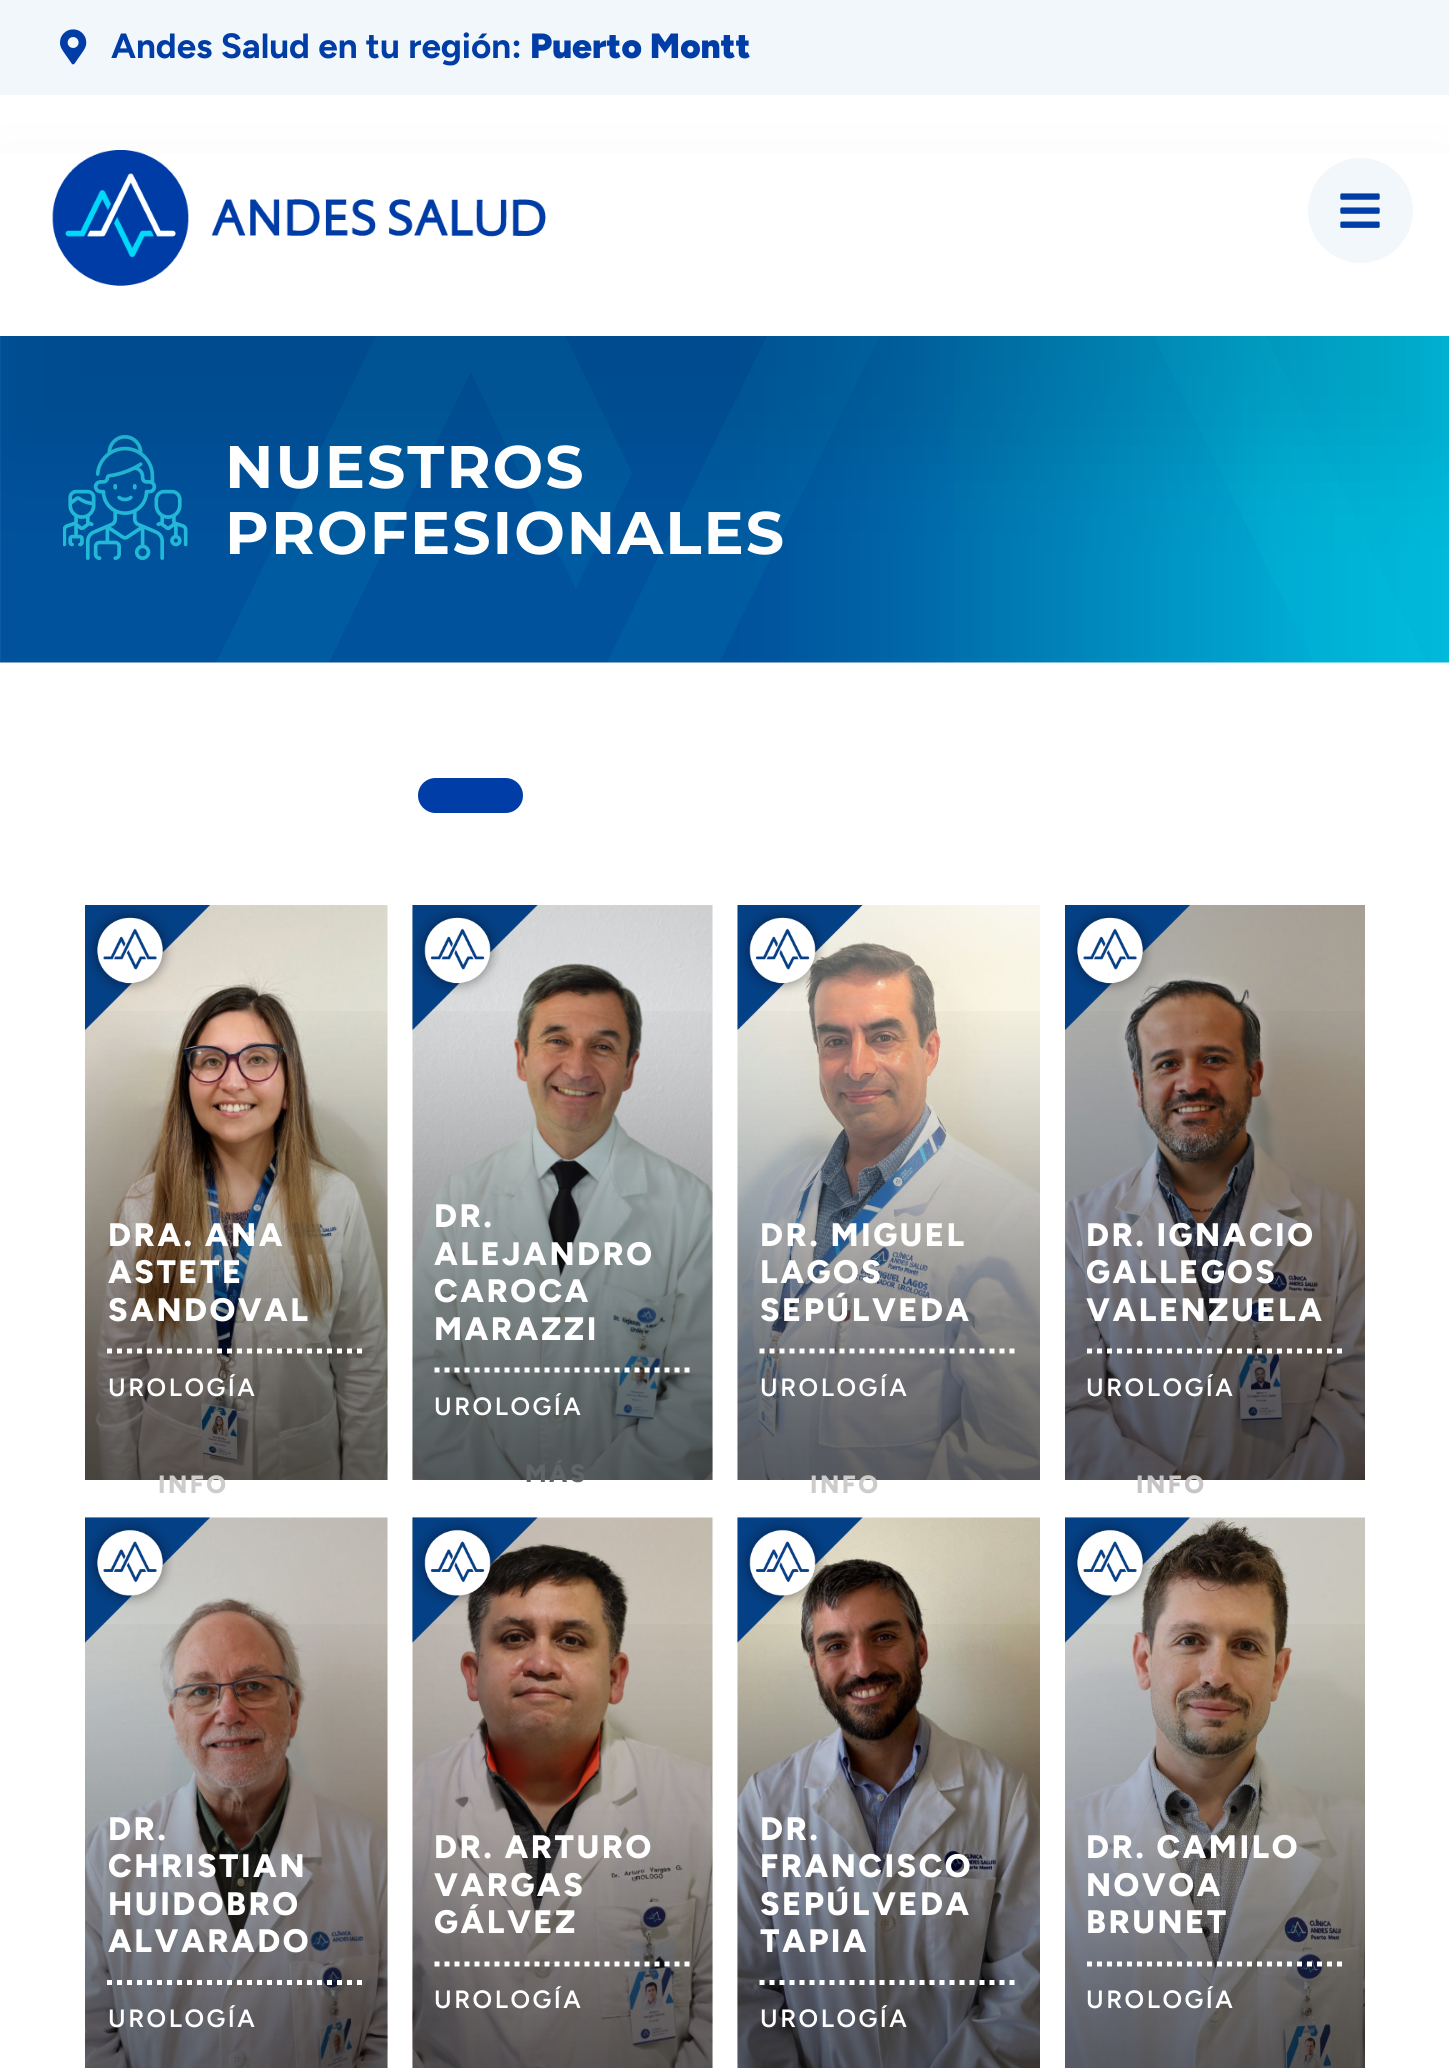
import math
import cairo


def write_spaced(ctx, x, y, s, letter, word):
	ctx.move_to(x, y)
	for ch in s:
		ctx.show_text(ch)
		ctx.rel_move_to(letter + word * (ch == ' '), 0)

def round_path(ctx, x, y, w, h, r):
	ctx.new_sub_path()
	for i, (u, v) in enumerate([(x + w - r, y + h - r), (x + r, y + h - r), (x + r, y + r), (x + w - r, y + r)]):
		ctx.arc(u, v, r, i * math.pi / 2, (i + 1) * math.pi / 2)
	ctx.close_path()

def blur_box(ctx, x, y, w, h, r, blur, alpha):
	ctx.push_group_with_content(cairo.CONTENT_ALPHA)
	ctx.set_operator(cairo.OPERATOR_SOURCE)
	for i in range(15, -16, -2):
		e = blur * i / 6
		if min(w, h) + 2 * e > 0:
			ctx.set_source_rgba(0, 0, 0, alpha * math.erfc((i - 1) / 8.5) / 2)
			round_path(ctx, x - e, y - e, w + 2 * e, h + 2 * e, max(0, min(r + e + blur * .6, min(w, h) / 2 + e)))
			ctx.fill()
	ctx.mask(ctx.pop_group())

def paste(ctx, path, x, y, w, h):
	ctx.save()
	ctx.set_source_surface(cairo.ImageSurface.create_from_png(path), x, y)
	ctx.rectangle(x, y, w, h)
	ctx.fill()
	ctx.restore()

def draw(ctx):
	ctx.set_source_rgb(1, 1, 1)
	ctx.paint()
	ctx.set_source_rgb(0.949, 0.965, 0.984)
	ctx.rectangle(0, 0, 1449, 95)
	ctx.fill()
	paste(ctx, 'media/1.png', 60, 29, 27, 36)
	ctx.select_font_face('Figtree', cairo.FONT_SLANT_NORMAL, cairo.FONT_WEIGHT_BOLD)
	ctx.set_font_size(35)
	ctx.set_source_rgb(0, 0.239, 0.651)
	ctx.move_to(111, 58)
	ctx.show_text('Andes Salud en tu región:')
	ctx.select_font_face('Figtree Black')
	ctx.move_to(530, 58)
	ctx.show_text('Puerto Montt')
	paste(ctx, 'media/4.png', 0, 336, 1449, 327)
	paste(ctx, 'media/5.png', 63, 435, 125, 125)
	ctx.set_source_rgb(0, 0, 0)
	blur_box(ctx, 0, 218, 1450, 237, 0, 52.5, 0.09)
	ctx.set_source_rgb(1, 1, 1)
	ctx.rectangle(0, 154, 1449, 182)
	ctx.fill()
	paste(ctx, 'media/2.png', 52, 150, 494, 136)
	ctx.set_source_rgb(0.949, 0.965, 0.984)
	ctx.arc(1360.5, 210.5, 52.5, 0, 2 * math.pi)
	ctx.fill()
	paste(ctx, 'media/3.png', 1340, 193, 40, 35)
	ctx.select_font_face('Montserrat', cairo.FONT_SLANT_NORMAL, cairo.FONT_WEIGHT_BOLD)
	ctx.set_font_size(60)
	ctx.set_source_rgb(1, 1, 1)
	write_spaced(ctx, 225, 488, 'NUESTROS', 2, 0)
	write_spaced(ctx, 225, 554, 'PROFESIONALES', 2, 0)
	ctx.set_source_rgb(0, 0.239, 0.651)
	round_path(ctx, 419.5, 779.5, 102, 32, 16)
	ctx.fill_preserve()
	ctx.set_line_width(3)
	ctx.stroke()
	paste(ctx, 'media/6.png', 85, 905, 303, 575)
	paste(ctx, 'media/7.png', 85, 1011, 303, 469)
	paste(ctx, 'media/8.png', 85, 905, 125, 125)
	ctx.new_path()
	ctx.move_to(107, 1351)
	ctx.line_to(364.5, 1351)
	ctx.set_source_rgb(1, 1, 1)
	ctx.set_line_width(5)
	ctx.set_dash([5, 5])
	ctx.stroke()
	ctx.select_font_face('Figtree ExtraBold')
	ctx.set_font_size(32.5)
	for x, y, s in [
		(108, 1246, 'DRA. ANA'),
		(108, 1283, 'ASTETE'),
		(108, 1321, 'SANDOVAL'),
	]:
		write_spaced(ctx, x, y, s, 2.5, 0)
	ctx.select_font_face('Figtree SemiBold')
	ctx.set_font_size(25)
	write_spaced(ctx, 108, 1396, 'UROLOGÍA', 2.5, 0)
	ctx.select_font_face('Figtree ExtraBold')
	ctx.set_source_rgb(0.804, 0.8, 0.796)
	write_spaced(ctx, 158, 1493, 'INFO', 2.5, 0)
	paste(ctx, 'media/9.png', 412, 905, 301, 575)
	paste(ctx, 'media/10.png', 412, 1011, 301, 469)
	paste(ctx, 'media/11.png', 412, 905, 126, 125)
	ctx.new_path()
	ctx.move_to(434.5, 1370)
	ctx.line_to(689.5, 1370)
	ctx.set_source_rgb(1, 1, 1)
	ctx.stroke()
	ctx.set_font_size(32.5)
	for x, y, s in [
		(434, 1227, 'DR.'),
		(434, 1265, 'ALEJANDRO'),
		(434, 1302, 'CAROCA'),
		(434, 1340, 'MARAZZI'),
	]:
		write_spaced(ctx, x, y, s, 2.5, 0)
	ctx.select_font_face('Figtree SemiBold')
	ctx.set_font_size(25)
	write_spaced(ctx, 434, 1415, 'UROLOGÍA', 2.5, 0)
	ctx.select_font_face('Figtree ExtraBold')
	ctx.set_source_rgb(0.376, 0.4, 0.404)
	write_spaced(ctx, 525, 1482, 'MÁS', 2.5, 0)
	paste(ctx, 'media/12.png', 737, 905, 303, 575)
	paste(ctx, 'media/13.png', 737, 1011, 303, 469)
	paste(ctx, 'media/14.png', 737, 905, 126, 125)
	ctx.new_path()
	ctx.move_to(759.5, 1351)
	ctx.line_to(1017, 1351)
	ctx.set_source_rgb(1, 1, 1)
	ctx.stroke()
	ctx.set_font_size(32.5)
	for x, y, s in [
		(760, 1246, 'DR. MIGUEL'),
		(760, 1283, 'LAGOS'),
		(760, 1321, 'SEPÚLVEDA'),
	]:
		write_spaced(ctx, x, y, s, 2.5, 0)
	ctx.select_font_face('Figtree SemiBold')
	ctx.set_font_size(25)
	write_spaced(ctx, 760, 1396, 'UROLOGÍA', 2.5, 0)
	ctx.select_font_face('Figtree ExtraBold')
	ctx.set_source_rgb(0.804, 0.8, 0.796)
	write_spaced(ctx, 810, 1493, 'INFO', 2.5, 0)
	paste(ctx, 'media/15.png', 1065, 905, 300, 575)
	paste(ctx, 'media/16.png', 1065, 1011, 300, 469)
	paste(ctx, 'media/17.png', 1065, 905, 125, 125)
	ctx.new_path()
	ctx.move_to(1087, 1351)
	ctx.line_to(1342, 1351)
	ctx.set_source_rgb(1, 1, 1)
	ctx.stroke()
	ctx.set_font_size(32.5)
	for x, y, s in [
		(1086, 1246, 'DR. IGNACIO'),
		(1086, 1283, 'GALLEGOS'),
		(1086, 1321, 'VALENZUELA'),
	]:
		write_spaced(ctx, x, y, s, 2.5, 0)
	ctx.select_font_face('Figtree SemiBold')
	ctx.set_font_size(25)
	write_spaced(ctx, 1086, 1396, 'UROLOGÍA', 2.5, 0)
	ctx.select_font_face('Figtree ExtraBold')
	ctx.set_source_rgb(0.776, 0.769, 0.769)
	write_spaced(ctx, 1136, 1493, 'INFO', 2.5, 0)
	paste(ctx, 'media/18.png', 85, 1517, 303, 551)
	paste(ctx, 'media/19.png', 85, 1624, 303, 444)
	paste(ctx, 'media/20.png', 85, 1517, 125, 126)
	ctx.new_path()
	ctx.move_to(107, 1982.5)
	ctx.line_to(364.5, 1982.5)
	ctx.set_source_rgb(1, 1, 1)
	ctx.stroke()
	ctx.set_font_size(32.5)
	for x, y, s in [
		(108, 1840, 'DR.'),
		(108, 1877, 'CHRISTIAN'),
		(108, 1915, 'HUIDOBRO'),
		(108, 1952, 'ALVARADO'),
	]:
		write_spaced(ctx, x, y, s, 2.5, 0)
	ctx.select_font_face('Figtree SemiBold')
	ctx.set_font_size(25)
	write_spaced(ctx, 108, 2027, 'UROLOGÍA', 2.5, 0)
	paste(ctx, 'media/21.png', 412, 1517, 301, 551)
	paste(ctx, 'media/22.png', 412, 1624, 301, 444)
	paste(ctx, 'media/23.png', 412, 1517, 126, 126)
	ctx.new_path()
	ctx.move_to(434.5, 1964)
	ctx.line_to(689.5, 1964)
	ctx.stroke()
	ctx.select_font_face('Figtree ExtraBold')
	ctx.set_font_size(32.5)
	for x, y, s in [
		(434, 1858, 'DR. ARTURO'),
		(434, 1896, 'VARGAS'),
		(434, 1933, 'GÁLVEZ'),
	]:
		write_spaced(ctx, x, y, s, 2.5, 0)
	ctx.select_font_face('Figtree SemiBold')
	ctx.set_font_size(25)
	write_spaced(ctx, 434, 2008, 'UROLOGÍA', 2.5, 0)
	paste(ctx, 'media/24.png', 737, 1517, 303, 551)
	paste(ctx, 'media/25.png', 737, 1624, 303, 444)
	paste(ctx, 'media/26.png', 737, 1517, 126, 126)
	ctx.new_path()
	ctx.move_to(759.5, 1982.5)
	ctx.line_to(1017, 1982.5)
	ctx.stroke()
	ctx.select_font_face('Figtree ExtraBold')
	ctx.set_font_size(32.5)
	for x, y, s in [
		(760, 1840, 'DR.'),
		(760, 1877, 'FRANCISCO'),
		(760, 1915, 'SEPÚLVEDA'),
		(760, 1952, 'TAPIA'),
	]:
		write_spaced(ctx, x, y, s, 2.5, 0)
	ctx.select_font_face('Figtree SemiBold')
	ctx.set_font_size(25)
	write_spaced(ctx, 760, 2027, 'UROLOGÍA', 2.5, 0)
	paste(ctx, 'media/27.png', 1065, 1517, 300, 551)
	paste(ctx, 'media/28.png', 1065, 1624, 300, 444)
	paste(ctx, 'media/29.png', 1065, 1517, 125, 126)
	ctx.new_path()
	ctx.move_to(1087, 1964)
	ctx.line_to(1342, 1964)
	ctx.stroke()
	ctx.select_font_face('Figtree ExtraBold')
	ctx.set_font_size(32.5)
	for x, y, s in [
		(1086, 1858, 'DR. CAMILO'),
		(1086, 1896, 'NOVOA'),
		(1086, 1933, 'BRUNET'),
	]:
		write_spaced(ctx, x, y, s, 2.5, 0)
	ctx.select_font_face('Figtree SemiBold')
	ctx.set_font_size(25)
	write_spaced(ctx, 1086, 2008, 'UROLOGÍA', 2.5, 0)


surface = cairo.ImageSurface(cairo.FORMAT_RGB24, 1449, 2068)
ctx = cairo.Context(surface)
options = cairo.FontOptions()
options.set_hint_metrics(cairo.HINT_METRICS_OFF)
options.set_hint_style(cairo.HINT_STYLE_NONE)
ctx.set_font_options(options)
ctx.set_miter_limit(4)
draw(ctx)
surface.write_to_png('image.png')
